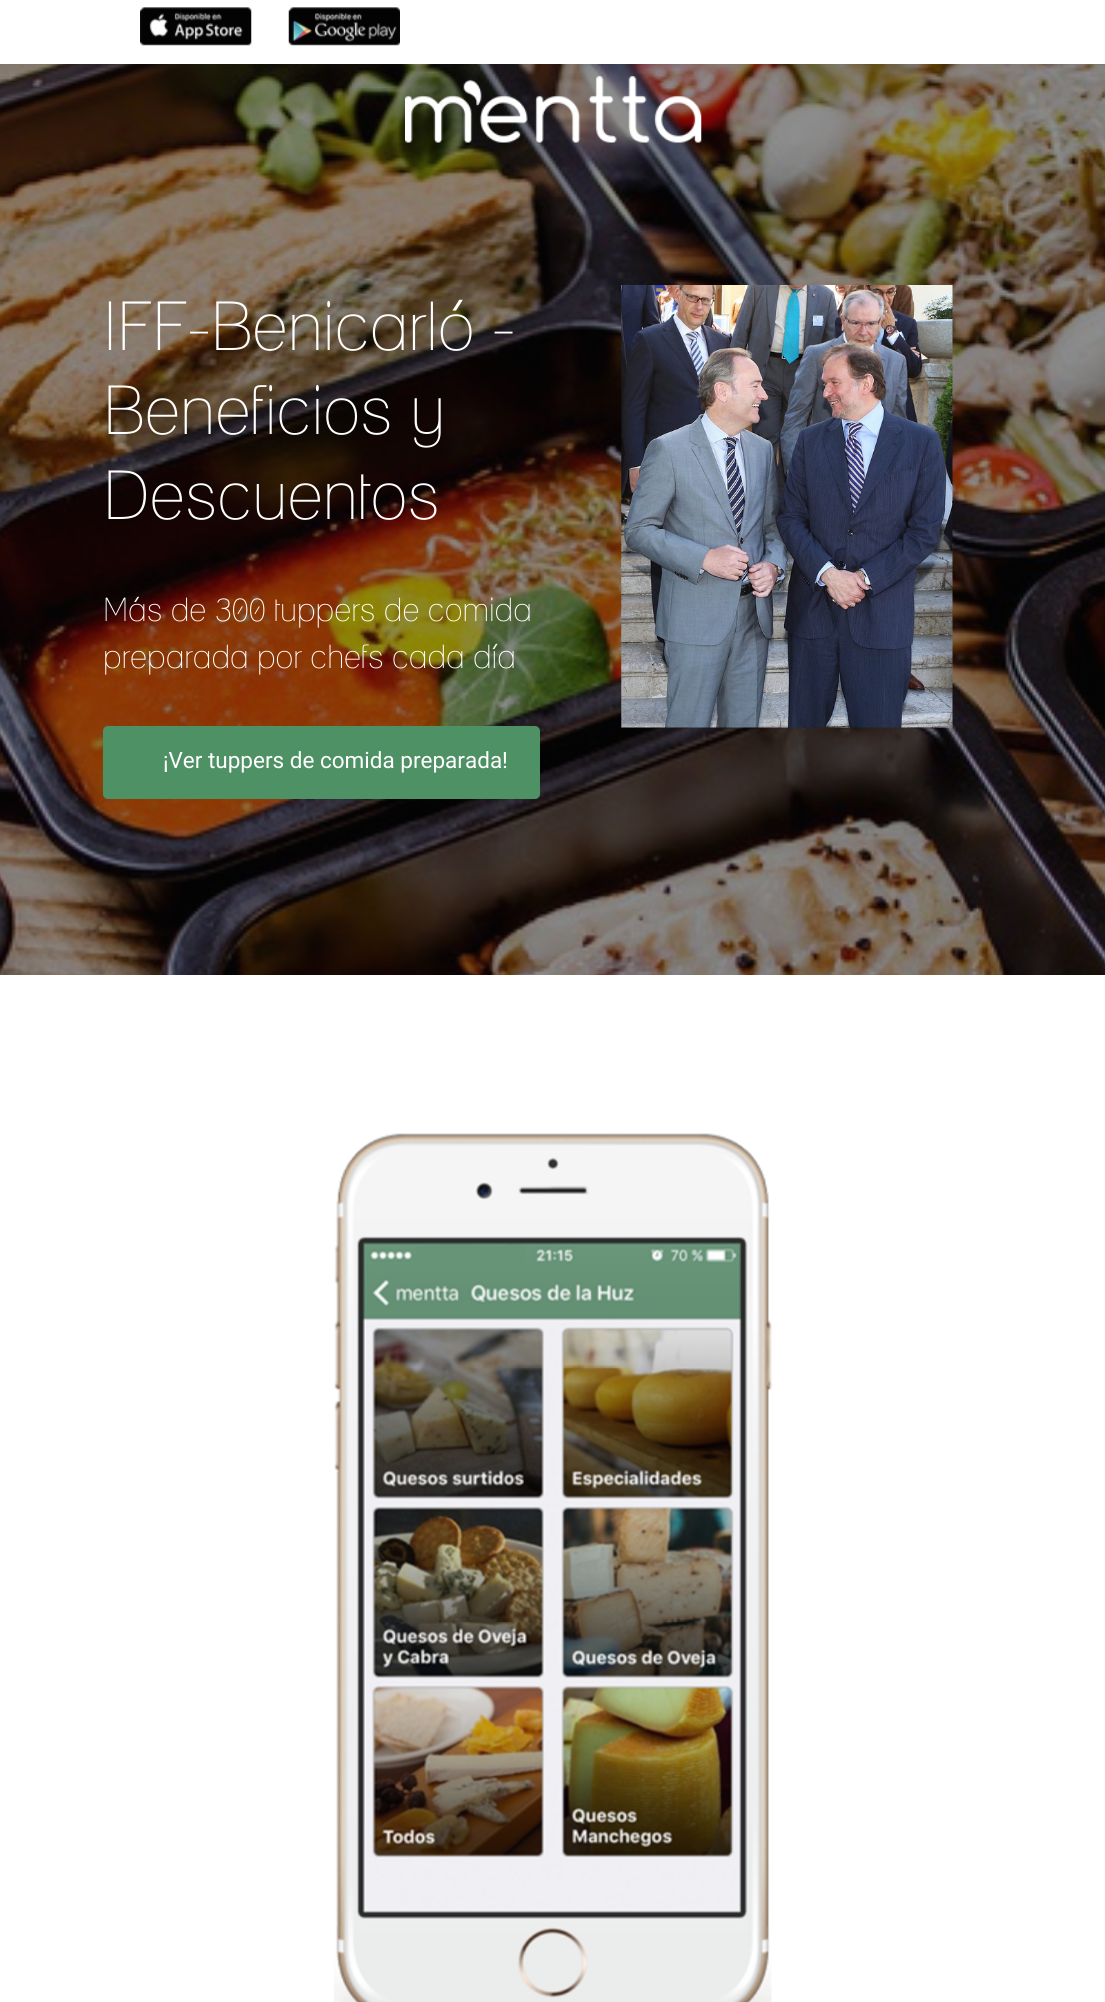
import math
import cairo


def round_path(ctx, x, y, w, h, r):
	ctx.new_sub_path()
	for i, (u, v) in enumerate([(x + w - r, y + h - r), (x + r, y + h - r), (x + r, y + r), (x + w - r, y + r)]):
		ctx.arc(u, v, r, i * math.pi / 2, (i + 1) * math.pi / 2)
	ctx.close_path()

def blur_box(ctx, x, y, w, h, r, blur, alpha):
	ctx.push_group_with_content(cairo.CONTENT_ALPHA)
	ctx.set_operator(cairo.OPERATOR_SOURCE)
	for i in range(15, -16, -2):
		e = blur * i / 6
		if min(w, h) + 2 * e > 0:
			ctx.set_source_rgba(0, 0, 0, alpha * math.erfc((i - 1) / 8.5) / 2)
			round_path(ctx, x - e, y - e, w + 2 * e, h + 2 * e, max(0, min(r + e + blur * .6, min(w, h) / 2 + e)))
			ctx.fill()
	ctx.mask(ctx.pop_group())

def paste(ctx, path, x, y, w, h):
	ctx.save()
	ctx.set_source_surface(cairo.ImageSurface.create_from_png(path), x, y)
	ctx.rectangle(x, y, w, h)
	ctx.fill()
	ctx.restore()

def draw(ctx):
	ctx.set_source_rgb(1, 1, 1)
	ctx.paint()
	paste(ctx, 'media/1.png', 0, 64, 1105, 911)
	paste(ctx, 'media/4.png', 405, 76, 297, 67)
	ctx.set_source_rgb(0.204, 0.204, 0.204)
	blur_box(ctx, 0, -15, 1105, 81, 0, 5, 0.08)
	ctx.set_source_rgb(1, 1, 1)
	ctx.rectangle(0, 0, 1105, 64)
	ctx.fill()
	paste(ctx, 'media/2.png', 140, 7, 112, 39)
	paste(ctx, 'media/3.png', 288, 7, 112, 39)
	ctx.select_font_face('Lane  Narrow')
	ctx.set_font_size(67.5)
	for x, y, s in [
		(103, 350, 'IFF-Benicarló -'),
		(103, 434, 'Beneficios y'),
		(103, 519, 'Descuentos'),
	]:
		ctx.move_to(x, y)
		ctx.show_text(s)
	ctx.set_font_size(32.5)
	ctx.move_to(103, 621)
	ctx.show_text('Más de 300 tuppers de comida')
	ctx.move_to(103, 668)
	ctx.show_text('preparada por chefs cada día')
	ctx.set_source_rgb(0.306, 0.569, 0.396)
	round_path(ctx, 103, 726, 437, 73, 5)
	ctx.fill()
	ctx.select_font_face('Roboto')
	ctx.set_font_size(22.5)
	ctx.set_source_rgb(1, 1, 1)
	ctx.move_to(163, 768)
	ctx.show_text('¡Ver tuppers de comida preparada!')
	paste(ctx, 'media/5.png', 621, 285, 332, 443)
	paste(ctx, 'media/6.png', 334, 1133, 438, 869)


surface = cairo.ImageSurface(cairo.FORMAT_RGB24, 1105, 2002)
ctx = cairo.Context(surface)
options = cairo.FontOptions()
options.set_hint_metrics(cairo.HINT_METRICS_OFF)
options.set_hint_style(cairo.HINT_STYLE_NONE)
ctx.set_font_options(options)
ctx.set_miter_limit(4)
draw(ctx)
surface.write_to_png('image.png')
